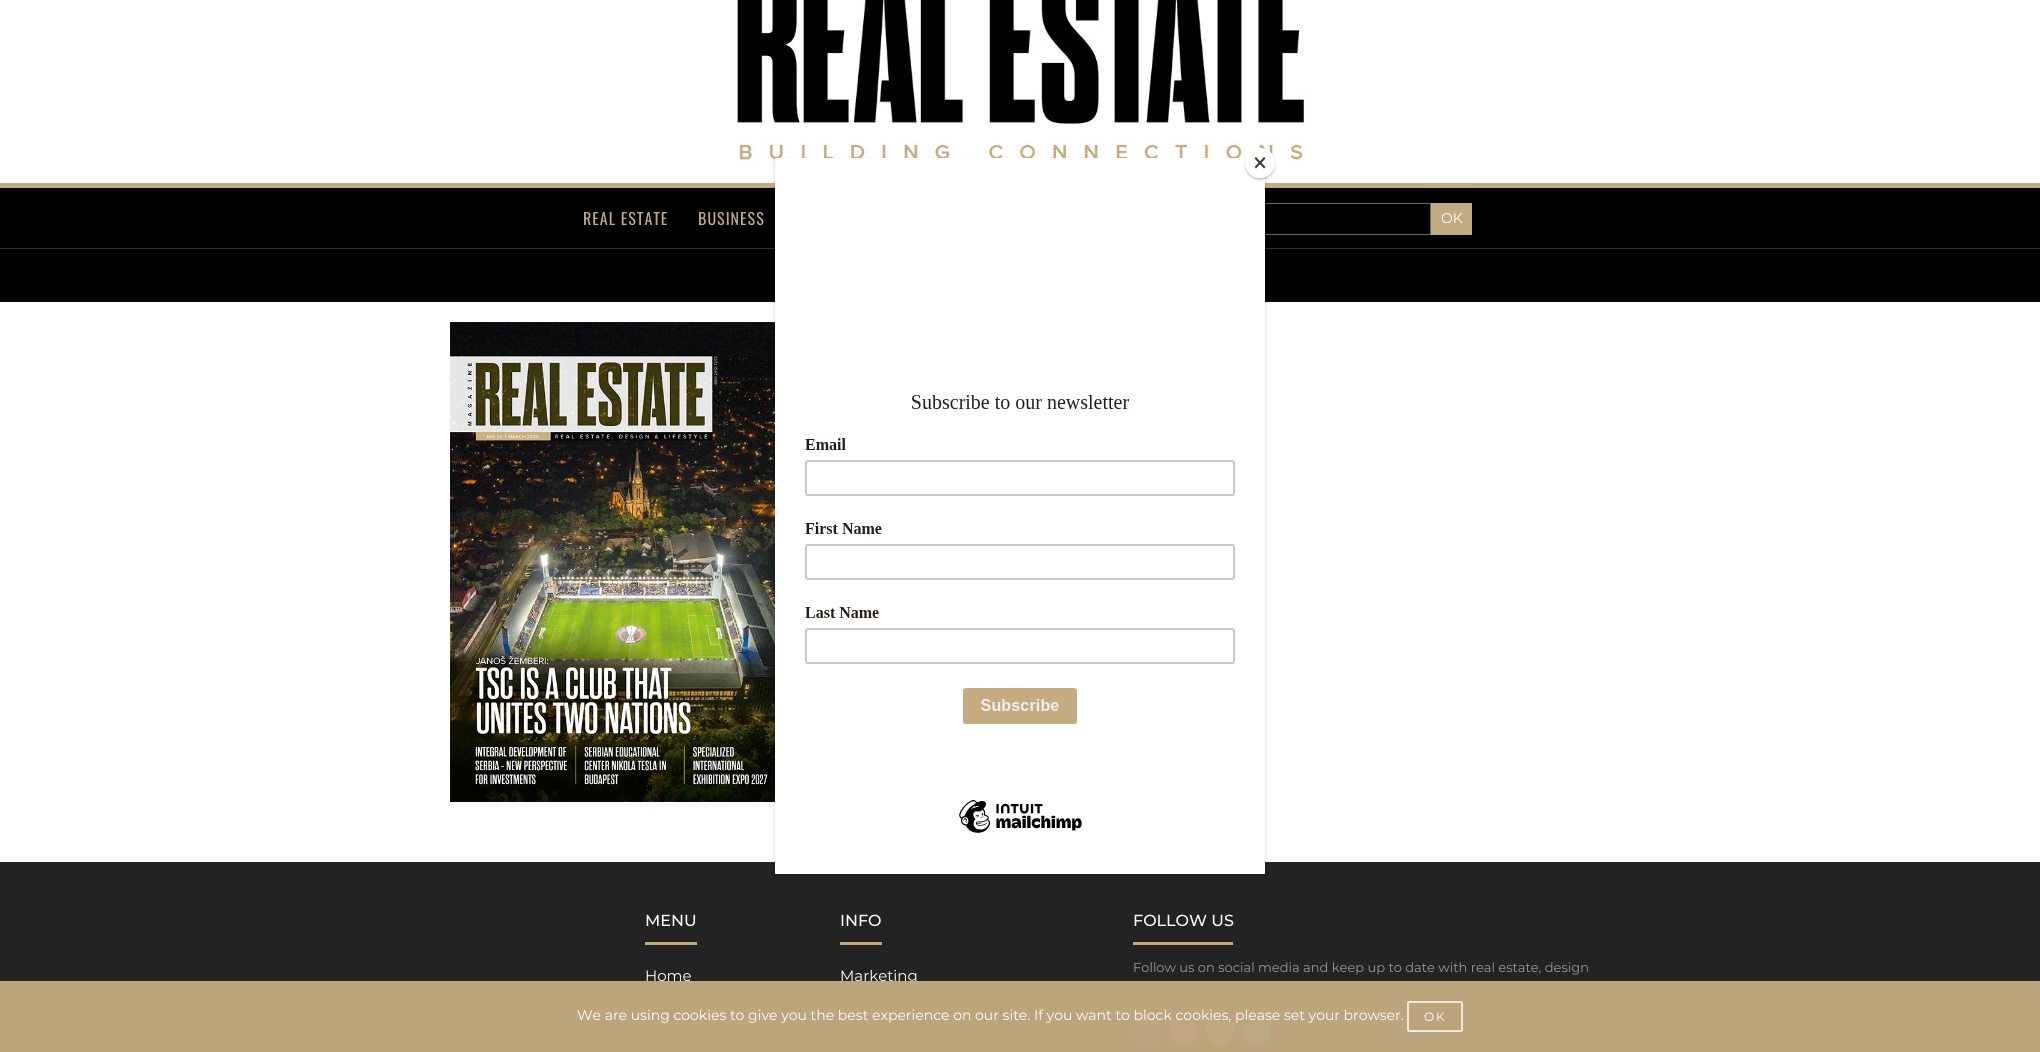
import math
import cairo


def write_spaced(ctx, x, y, s, letter, word):
	ctx.move_to(x, y)
	for ch in s:
		ctx.show_text(ch)
		ctx.rel_move_to(letter + word * (ch == ' '), 0)

def round_path(ctx, x, y, w, h, r):
	ctx.new_sub_path()
	for i, (u, v) in enumerate([(x + w - r, y + h - r), (x + r, y + h - r), (x + r, y + r), (x + w - r, y + r)]):
		ctx.arc(u, v, r, i * math.pi / 2, (i + 1) * math.pi / 2)
	ctx.close_path()

def blur_box(ctx, x, y, w, h, r, blur, alpha):
	ctx.push_group_with_content(cairo.CONTENT_ALPHA)
	ctx.set_operator(cairo.OPERATOR_SOURCE)
	for i in range(15, -16, -2):
		e = blur * i / 6
		if min(w, h) + 2 * e > 0:
			ctx.set_source_rgba(0, 0, 0, alpha * math.erfc((i - 1) / 8.5) / 2)
			round_path(ctx, x - e, y - e, w + 2 * e, h + 2 * e, max(0, min(r + e + blur * .6, min(w, h) / 2 + e)))
			ctx.fill()
	ctx.mask(ctx.pop_group())

def paste(ctx, path, x, y, w, h):
	ctx.save()
	ctx.set_source_surface(cairo.ImageSurface.create_from_png(path), x, y)
	ctx.rectangle(x, y, w, h)
	ctx.fill()
	ctx.restore()

def draw(ctx):
	ctx.set_source_rgb(1, 1, 1)
	ctx.paint()
	ctx.set_source_rgb(0.761, 0.671, 0.506)
	ctx.rectangle(0, 183, 2040, 5)
	ctx.fill()
	paste(ctx, 'media/2.png', 737, 0, 570, 163)
	ctx.set_source_rgb(0, 0, 0)
	ctx.rectangle(0, 188, 2040, 60)
	ctx.fill()
	ctx.rectangle(1181.5, 203.5, 249, 31)
	ctx.set_source_rgb(0.4, 0.4, 0.4)
	ctx.set_line_width(1)
	ctx.stroke()
	ctx.set_source_rgb(0, 0, 0)
	ctx.rectangle(0, 249, 2040, 53)
	ctx.fill()
	ctx.set_source_rgb(0.2, 0.2, 0.2)
	ctx.rectangle(0, 248, 2040, 1)
	ctx.fill()
	paste(ctx, 'media/3.png', 450, 322, 325, 480)
	ctx.set_source_rgb(0.137, 0.137, 0.137)
	ctx.rectangle(0, 862, 2040, 190)
	ctx.fill()
	ctx.set_source_rgb(0, 0, 0)
	blur_box(ctx, 775, 160, 490, 716, 0, 2, 0.2)
	paste(ctx, 'media/1.png', 775, 158, 490, 716)
	blur_box(ctx, 1245, 150, 30, 30, 15, 1, 0.2)
	ctx.set_source_rgb(1, 1, 1)
	ctx.arc(1260, 163, 15, 0, 2 * math.pi)
	ctx.fill()
	ctx.set_source_rgb(0.255, 0.255, 0.255)
	ctx.new_path()
	ctx.move_to(1264, 157)
	ctx.line_to(1265.5, 158.5)
	ctx.line_to(1256, 168.5)
	ctx.line_to(1254.5, 167)
	ctx.close_path()
	ctx.fill()
	ctx.new_path()
	ctx.move_to(1254.5, 158.5)
	ctx.line_to(1256, 157)
	ctx.line_to(1265.5, 167)
	ctx.line_to(1264, 168.5)
	ctx.close_path()
	ctx.fill()
	ctx.select_font_face('Oswald')
	ctx.set_font_size(16)
	ctx.set_source_rgb(0.761, 0.671, 0.506)
	write_spaced(ctx, 583, 225, 'REAL ESTATE', 1, 0)
	write_spaced(ctx, 698, 225, 'BUSINESS', 1, 0)
	ctx.rectangle(1431, 203, 41, 32)
	ctx.fill()
	ctx.select_font_face('Montserrat')
	ctx.set_font_size(14)
	ctx.set_source_rgb(1, 1, 1)
	ctx.move_to(1441, 223)
	ctx.show_text('OK')
	ctx.select_font_face('Montserrat Medium')
	ctx.set_font_size(16)
	ctx.move_to(645, 926)
	ctx.show_text('MENU')
	ctx.set_source_rgb(0.761, 0.671, 0.506)
	ctx.rectangle(645, 942, 52, 3)
	ctx.fill()
	ctx.select_font_face('Montserrat')
	ctx.set_font_size(15)
	ctx.set_source_rgb(1, 1, 1)
	ctx.move_to(645, 981)
	ctx.show_text('Home')
	ctx.select_font_face('Montserrat Medium')
	ctx.set_font_size(16)
	ctx.move_to(840, 926)
	ctx.show_text('INFO')
	ctx.set_source_rgb(0.761, 0.671, 0.506)
	ctx.rectangle(840, 942, 42, 3)
	ctx.fill()
	ctx.select_font_face('Montserrat')
	ctx.set_font_size(15)
	ctx.set_source_rgb(1, 1, 1)
	ctx.move_to(840, 981)
	ctx.show_text('Marketing')
	ctx.select_font_face('Montserrat Medium')
	ctx.set_font_size(16)
	ctx.move_to(1133, 926)
	ctx.show_text('FOLLOW US')
	ctx.set_source_rgb(0.761, 0.671, 0.506)
	ctx.rectangle(1133, 942, 100, 3)
	ctx.fill()
	ctx.select_font_face('Montserrat')
	ctx.set_font_size(13)
	ctx.set_source_rgb(0.6, 0.6, 0.6)
	ctx.move_to(1133, 972)
	ctx.show_text('Follow us on social media and keep up to date with real estate, design')
	ctx.set_source_rgb(0.247, 0.341, 0.596)
	ctx.new_path()
	ctx.move_to(1147, 1016)
	ctx.curve_to(1154.5, 1016, 1161, 1023, 1161, 1031.5)
	ctx.curve_to(1161, 1040, 1154.5, 1047, 1147, 1047)
	ctx.curve_to(1139.5, 1047, 1133, 1040, 1133, 1031.5)
	ctx.curve_to(1133, 1023, 1139.5, 1016, 1147, 1016)
	ctx.close_path()
	ctx.fill()
	ctx.set_source_rgb(0.839, 0.161, 0.463)
	ctx.new_path()
	ctx.move_to(1183, 1016)
	ctx.curve_to(1190.5, 1016, 1197, 1023, 1197, 1031.5)
	ctx.curve_to(1197, 1040, 1190.5, 1047, 1183, 1047)
	ctx.curve_to(1175.5, 1047, 1169, 1040, 1169, 1031.5)
	ctx.curve_to(1169, 1023, 1175.5, 1016, 1183, 1016)
	ctx.close_path()
	ctx.fill()
	ctx.set_source_rgb(0.396, 0.467, 0.525)
	ctx.new_path()
	ctx.move_to(1220, 1016)
	ctx.curve_to(1227.5, 1016, 1234, 1023, 1234, 1031.5)
	ctx.curve_to(1234, 1040, 1227.5, 1047, 1220, 1047)
	ctx.curve_to(1212.5, 1047, 1206, 1040, 1206, 1031.5)
	ctx.curve_to(1206, 1023, 1212.5, 1016, 1220, 1016)
	ctx.close_path()
	ctx.fill()
	ctx.set_source_rgb(0.055, 0.463, 0.659)
	ctx.new_path()
	ctx.move_to(1257, 1016)
	ctx.curve_to(1264.5, 1016, 1271, 1023, 1271, 1031.5)
	ctx.curve_to(1271, 1040, 1264.5, 1047, 1257, 1047)
	ctx.curve_to(1249.5, 1047, 1243, 1040, 1243, 1031.5)
	ctx.curve_to(1243, 1023, 1249.5, 1016, 1257, 1016)
	ctx.close_path()
	ctx.fill()
	ctx.set_source_rgba(0.765, 0.671, 0.506, 0.95)
	ctx.rectangle(0, 981, 2040, 71)
	ctx.fill()
	ctx.set_font_size(14)
	ctx.set_source_rgb(1, 1, 1)
	ctx.move_to(577, 1020)
	ctx.show_text('We are using cookies to give you the best experience on our site. If you want to block cookies, please set your browser.')
	round_path(ctx, 1408, 1002, 54, 29, 1)
	ctx.set_source_rgb(0.933, 0.91, 0.871)
	ctx.set_line_width(2)
	ctx.stroke()
	ctx.set_font_size(12)
	ctx.set_source_rgb(1, 1, 1)
	write_spaced(ctx, 1424, 1021, 'OK', 2, 0)


surface = cairo.ImageSurface(cairo.FORMAT_RGB24, 2040, 1052)
ctx = cairo.Context(surface)
options = cairo.FontOptions()
options.set_hint_metrics(cairo.HINT_METRICS_OFF)
options.set_hint_style(cairo.HINT_STYLE_NONE)
ctx.set_font_options(options)
ctx.set_miter_limit(4)
draw(ctx)
surface.write_to_png('image.png')
